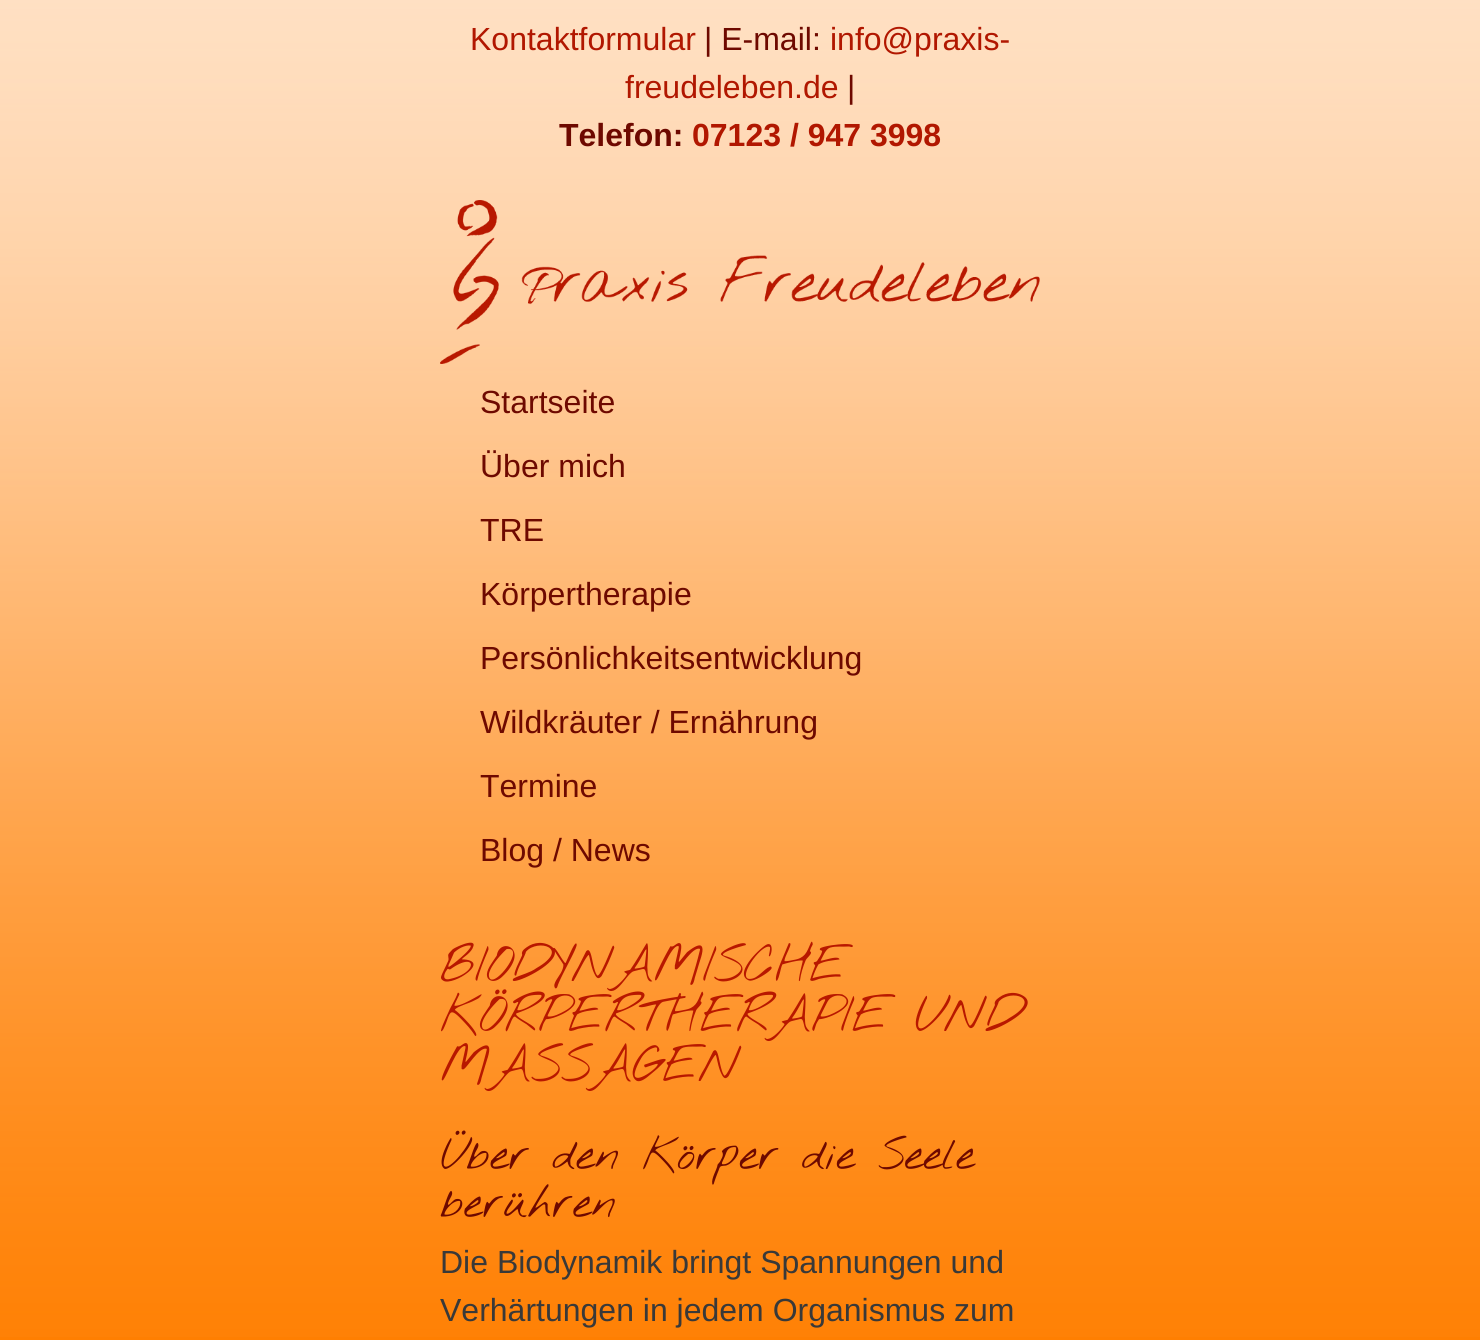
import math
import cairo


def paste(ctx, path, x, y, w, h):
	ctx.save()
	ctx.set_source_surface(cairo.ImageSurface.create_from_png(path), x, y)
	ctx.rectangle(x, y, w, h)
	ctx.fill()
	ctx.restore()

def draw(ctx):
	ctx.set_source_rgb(1, 0.498, 0.004)
	ctx.paint()
	paste(ctx, 'media/1.png', 0, 0, 1480, 1337)
	ctx.select_font_face('Liberation Sans')
	ctx.set_font_size(32)
	ctx.set_source_rgb(0.694, 0.09, 0)
	ctx.move_to(470, 50)
	ctx.show_text('Kontaktformular')
	ctx.set_source_rgb(0.431, 0.039, 0)
	ctx.move_to(704, 50)
	ctx.show_text('| E-mail:')
	ctx.set_source_rgb(0.694, 0.09, 0)
	ctx.move_to(830, 50)
	ctx.show_text('info@praxis-')
	ctx.move_to(625, 98)
	ctx.show_text('freudeleben.de')
	ctx.set_source_rgb(0.431, 0.039, 0)
	ctx.move_to(847, 98)
	ctx.show_text('|')
	ctx.select_font_face('Liberation Sans', cairo.FONT_SLANT_NORMAL, cairo.FONT_WEIGHT_BOLD)
	ctx.move_to(559, 146)
	ctx.show_text('Telefon:')
	ctx.set_source_rgb(0.694, 0.09, 0)
	ctx.move_to(692, 146)
	ctx.show_text('07123 / 947 3998')
	paste(ctx, 'media/2.png', 440, 200, 600, 164)
	ctx.select_font_face('Liberation Sans')
	ctx.set_source_rgb(0.431, 0.039, 0)
	for x, y, s in [
		(480, 413, 'Startseite'),
		(480, 477, 'Über mich'),
		(480, 541, 'TRE'),
		(480, 605, 'Körpertherapie'),
		(480, 669, 'Persönlichkeitsentwicklung'),
		(480, 733, 'Wildkräuter / Ernährung'),
		(480, 797, 'Termine'),
		(480, 861, 'Blog / News'),
	]:
		ctx.move_to(x, y)
		ctx.show_text(s)
	ctx.select_font_face('Nothing You Could Do Thin')
	ctx.set_font_size(50)
	ctx.set_source_rgb(0.722, 0.094, 0)
	for x, y, s in [
		(440, 981, 'BIODYNAMISCHE'),
		(440, 1031, 'KÖRPERTHERAPIE UND'),
		(440, 1081, 'MASSAGEN'),
	]:
		ctx.move_to(x, y)
		ctx.show_text(s)
	ctx.set_font_size(44)
	ctx.set_source_rgb(0.431, 0.039, 0)
	ctx.move_to(440, 1169)
	ctx.show_text('Über den Körper die Seele')
	ctx.move_to(440, 1217)
	ctx.show_text('berühren')
	ctx.select_font_face('Liberation Sans')
	ctx.set_font_size(32)
	ctx.set_source_rgb(0.224, 0.224, 0.224)
	ctx.move_to(440, 1273)
	ctx.show_text('Die Biodynamik bringt Spannungen und')
	ctx.move_to(440, 1321)
	ctx.show_text('Verhärtungen in jedem Organismus zum')


surface = cairo.ImageSurface(cairo.FORMAT_RGB24, 1480, 1340)
ctx = cairo.Context(surface)
options = cairo.FontOptions()
options.set_hint_metrics(cairo.HINT_METRICS_OFF)
options.set_hint_style(cairo.HINT_STYLE_NONE)
ctx.set_font_options(options)
ctx.set_miter_limit(4)
draw(ctx)
surface.write_to_png('image.png')
